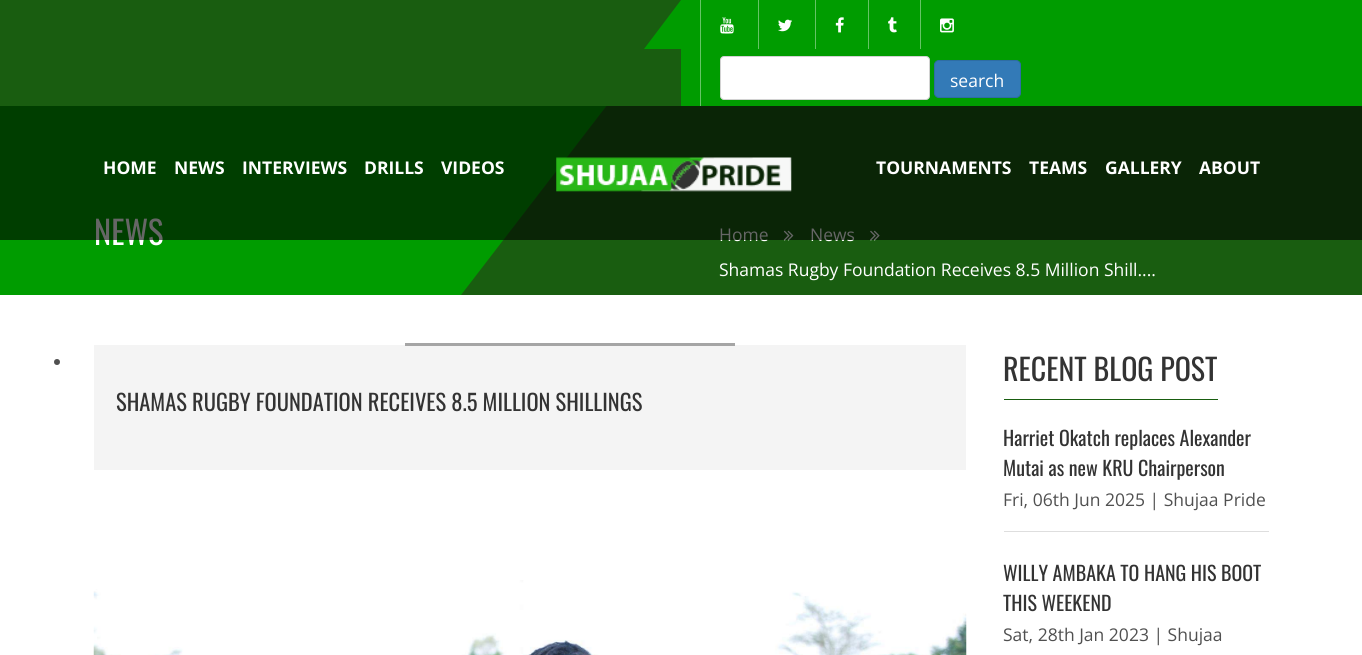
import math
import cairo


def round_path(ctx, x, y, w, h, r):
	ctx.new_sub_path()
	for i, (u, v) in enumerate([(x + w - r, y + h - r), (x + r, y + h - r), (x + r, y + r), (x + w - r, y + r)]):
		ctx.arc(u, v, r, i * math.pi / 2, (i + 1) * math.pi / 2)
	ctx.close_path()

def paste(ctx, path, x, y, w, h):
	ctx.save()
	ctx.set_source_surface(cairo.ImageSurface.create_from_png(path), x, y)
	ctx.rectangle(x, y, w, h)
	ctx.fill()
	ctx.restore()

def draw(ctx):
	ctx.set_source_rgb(1, 1, 1)
	ctx.paint()
	ctx.set_source_rgb(0, 0.612, 0)
	ctx.rectangle(0, 106, 607, 189)
	ctx.fill()
	ctx.set_source_rgb(0.098, 0.365, 0.063)
	ctx.new_path()
	ctx.move_to(651, 295)
	ctx.line_to(461, 295)
	ctx.line_to(651, 48)
	ctx.close_path()
	ctx.fill()
	ctx.rectangle(0, 0, 681, 106)
	ctx.fill()
	ctx.set_source_rgb(0, 0.612, 0)
	ctx.new_path()
	ctx.move_to(681, 49)
	ctx.line_to(644, 49)
	ctx.line_to(681, 0)
	ctx.close_path()
	ctx.fill()
	ctx.rectangle(681, 0, 681, 106)
	ctx.fill()
	ctx.set_source_rgb(0.4, 0.769, 0.4)
	ctx.rectangle(700, 0, 1, 106)
	ctx.fill()
	paste(ctx, 'media/1.png', 720, 17, 14, 17)
	ctx.rectangle(758, 0, 1, 49)
	ctx.fill()
	paste(ctx, 'media/2.png', 778, 19, 14, 13)
	ctx.rectangle(815, 0, 1, 49)
	ctx.fill()
	paste(ctx, 'media/3.png', 835, 17, 9, 16)
	ctx.rectangle(868, 0, 1, 49)
	ctx.fill()
	paste(ctx, 'media/4.png', 888, 17, 9, 16)
	ctx.rectangle(920, 0, 1, 49)
	ctx.fill()
	paste(ctx, 'media/5.png', 940, 18, 14, 15)
	ctx.set_source_rgb(1, 1, 1)
	round_path(ctx, 720.5, 56.5, 209, 43, 3.5)
	ctx.fill_preserve()
	ctx.set_source_rgb(0.824, 0.824, 0.824)
	ctx.set_line_width(1)
	ctx.stroke()
	ctx.set_source_rgb(0.2, 0.478, 0.718)
	round_path(ctx, 934.5, 60.5, 86, 37, 4.5)
	ctx.fill_preserve()
	ctx.set_source_rgb(0.18, 0.427, 0.643)
	ctx.stroke()
	ctx.select_font_face('Open Sans')
	ctx.set_font_size(17.5)
	ctx.set_source_rgb(1, 1, 1)
	ctx.move_to(950, 87)
	ctx.show_text('search')
	ctx.set_source_rgb(0.098, 0.365, 0.063)
	ctx.rectangle(651, 106, 711, 189)
	ctx.fill()
	ctx.select_font_face('Oswald')
	ctx.set_font_size(32.5)
	ctx.set_source_rgb(1, 1, 1)
	ctx.move_to(94, 245)
	ctx.show_text('NEWS')
	ctx.select_font_face('Open Sans')
	ctx.set_font_size(17.5)
	ctx.move_to(719, 241)
	ctx.show_text('Home')
	paste(ctx, 'media/7.png', 783, 230, 11, 11)
	ctx.move_to(810, 241)
	ctx.show_text('News')
	paste(ctx, 'media/8.png', 870, 230, 10, 11)
	ctx.set_source_rgba(0, 0, 0, 0.6)
	ctx.rectangle(0, 106, 1362, 134)
	ctx.fill()
	ctx.select_font_face('Open Sans', cairo.FONT_SLANT_NORMAL, cairo.FONT_WEIGHT_BOLD)
	ctx.set_source_rgb(1, 1, 1)
	for x, y, s in [
		(103, 174, 'HOME'),
		(174, 174, 'NEWS'),
		(242, 174, 'INTERVIEWS'),
		(364, 174, 'DRILLS'),
		(441, 174, 'VIDEOS'),
	]:
		ctx.move_to(x, y)
		ctx.show_text(s)
	paste(ctx, 'media/6.png', 556, 157, 236, 35)
	for x, y, s in [
		(876, 174, 'TOURNAMENTS'),
		(1029, 174, 'TEAMS'),
		(1105, 174, 'GALLERY'),
		(1199, 174, 'ABOUT'),
	]:
		ctx.move_to(x, y)
		ctx.show_text(s)
	ctx.select_font_face('Open Sans')
	ctx.move_to(719, 276)
	ctx.show_text('Shamas Rugby Foundation Receives 8.5 Million Shill....')
	ctx.set_source_rgb(0.314, 0.314, 0.314)
	ctx.new_path()
	ctx.arc(57, 362, 3, 0, 2 * math.pi)
	ctx.fill()
	ctx.set_source_rgb(0.957, 0.957, 0.957)
	ctx.rectangle(94, 345, 872, 125)
	ctx.fill()
	ctx.set_source_rgb(0.647, 0.647, 0.647)
	ctx.rectangle(405, 343, 330, 3)
	ctx.fill()
	ctx.select_font_face('Oswald')
	ctx.set_font_size(22.5)
	ctx.set_source_rgb(0.2, 0.2, 0.2)
	ctx.move_to(116, 411)
	ctx.show_text('SHAMAS RUGBY FOUNDATION RECEIVES 8.5 MILLION SHILLINGS')
	paste(ctx, 'media/9.png', 93, 580, 874, 75)
	ctx.set_source_rgb(0.098, 0.365, 0.063)
	ctx.rectangle(1004, 399, 214, 1)
	ctx.fill()
	ctx.set_font_size(30)
	ctx.set_source_rgb(0.2, 0.2, 0.2)
	ctx.move_to(1003, 381)
	ctx.show_text('RECENT BLOG POST')
	ctx.set_source_rgb(0.871, 0.871, 0.871)
	ctx.rectangle(1004, 531, 265, 1)
	ctx.fill()
	ctx.set_font_size(20)
	ctx.set_source_rgb(0.2, 0.2, 0.2)
	ctx.move_to(1003, 446)
	ctx.show_text('Harriet Okatch replaces Alexander')
	ctx.move_to(1003, 476)
	ctx.show_text('Mutai as new KRU Chairperson')
	ctx.select_font_face('Open Sans')
	ctx.set_font_size(17.5)
	ctx.set_source_rgb(0.314, 0.314, 0.314)
	ctx.move_to(1003, 506)
	ctx.show_text('Fri, 06th Jun 2025 | Shujaa Pride')
	ctx.select_font_face('Oswald')
	ctx.set_font_size(20)
	ctx.set_source_rgb(0.2, 0.2, 0.2)
	ctx.move_to(1003, 581)
	ctx.show_text('WILLY AMBAKA TO HANG HIS BOOT')
	ctx.move_to(1003, 611)
	ctx.show_text('THIS WEEKEND')
	ctx.select_font_face('Open Sans')
	ctx.set_font_size(17.5)
	ctx.set_source_rgb(0.314, 0.314, 0.314)
	ctx.move_to(1003, 641)
	ctx.show_text('Sat, 28th Jan 2023 | Shujaa')


surface = cairo.ImageSurface(cairo.FORMAT_RGB24, 1362, 655)
ctx = cairo.Context(surface)
options = cairo.FontOptions()
options.set_hint_metrics(cairo.HINT_METRICS_OFF)
options.set_hint_style(cairo.HINT_STYLE_NONE)
ctx.set_font_options(options)
ctx.set_miter_limit(4)
draw(ctx)
surface.write_to_png('image.png')
